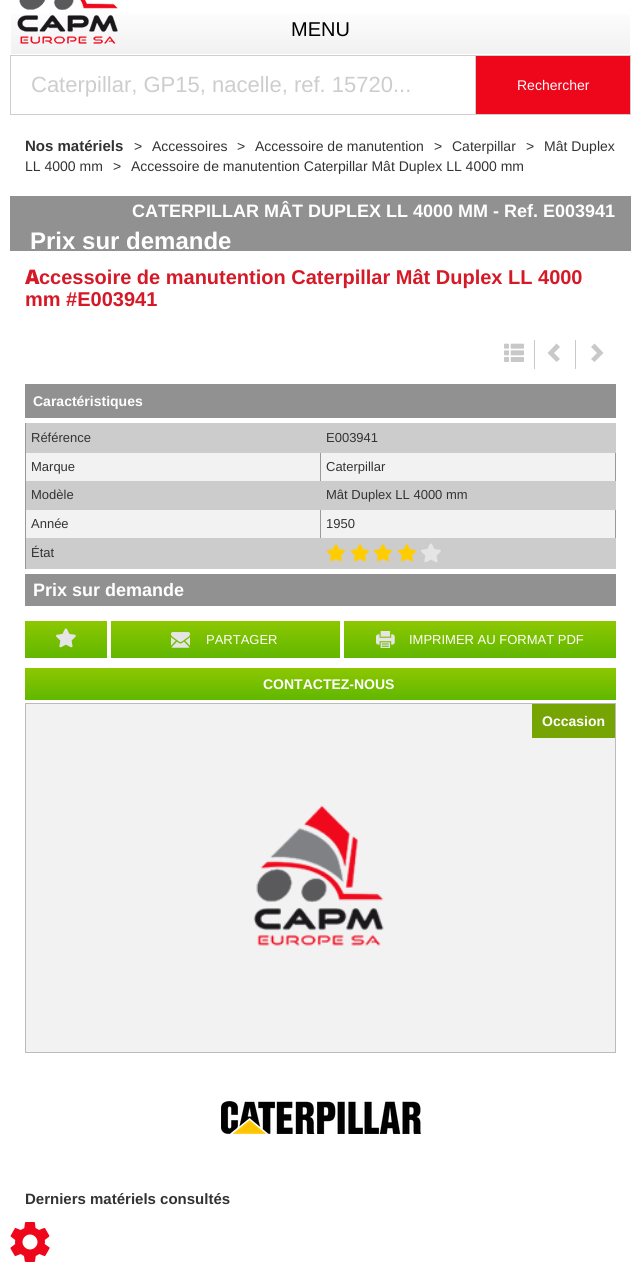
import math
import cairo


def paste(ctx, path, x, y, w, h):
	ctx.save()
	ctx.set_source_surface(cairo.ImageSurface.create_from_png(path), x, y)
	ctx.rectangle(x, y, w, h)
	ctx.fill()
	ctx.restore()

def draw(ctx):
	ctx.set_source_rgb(1, 1, 1)
	ctx.paint()
	gradient = cairo.LinearGradient(321, 5, 321, 54)
	gradient.add_color_stop_rgba(0, 1, 1, 1, 1)
	gradient.add_color_stop_rgba(1, 0.945, 0.945, 0.945, 1)
	ctx.set_source(gradient)
	ctx.rectangle(11, 14, 619, 40)
	ctx.fill()
	paste(ctx, 'media/1.png', 17, 0, 101, 44)
	ctx.select_font_face('Liberation Sans')
	ctx.set_font_size(20)
	ctx.set_source_rgb(0, 0, 0)
	ctx.move_to(291, 36)
	ctx.show_text('MENU')
	ctx.rectangle(10.5, 55.5, 465, 59)
	ctx.set_source_rgb(0.808, 0.808, 0.816)
	ctx.set_line_width(1)
	ctx.stroke()
	ctx.set_font_size(22)
	ctx.set_source_rgb(0.804, 0.804, 0.804)
	ctx.move_to(31, 92)
	ctx.show_text('Caterpillar, GP15, nacelle, ref. 15720...')
	ctx.set_source_rgb(0.933, 0.027, 0.106)
	ctx.rectangle(476, 56, 154, 58)
	ctx.fill()
	ctx.set_source_rgb(0.808, 0.808, 0.816)
	ctx.rectangle(476, 55, 155, 1)
	ctx.rectangle(630, 55, 1, 60)
	ctx.rectangle(476, 114, 155, 1)
	ctx.fill()
	ctx.set_font_size(14)
	ctx.set_source_rgb(1, 1, 1)
	ctx.move_to(517, 90)
	ctx.show_text('Rechercher')
	ctx.select_font_face('Liberation Sans', cairo.FONT_SLANT_NORMAL, cairo.FONT_WEIGHT_BOLD)
	ctx.set_font_size(15)
	ctx.set_source_rgb(0.2, 0.2, 0.2)
	ctx.move_to(25, 151)
	ctx.show_text('Nos matériels')
	ctx.select_font_face('Liberation Sans')
	ctx.set_font_size(14)
	for x, y, s in [
		(134, 151, '>'),
		(152, 151, 'Accessoires'),
		(237, 151, '>'),
		(255, 151, 'Accessoire de manutention'),
		(434, 151, '>'),
		(452, 151, 'Caterpillar'),
		(526, 151, '>'),
		(544, 151, 'Mât Duplex'),
		(25, 171, 'LL 4000 mm'),
		(113, 171, '>'),
		(131, 171, 'Accessoire de manutention Caterpillar Mât Duplex LL 4000 mm'),
	]:
		ctx.move_to(x, y)
		ctx.show_text(s)
	ctx.set_source_rgb(0.569, 0.569, 0.569)
	ctx.rectangle(10, 196, 621, 55)
	ctx.fill()
	ctx.select_font_face('Liberation Sans', cairo.FONT_SLANT_NORMAL, cairo.FONT_WEIGHT_BOLD)
	ctx.set_font_size(18)
	ctx.set_source_rgb(1, 1, 1)
	ctx.move_to(132, 217)
	ctx.show_text('CATERPILLAR MÂT DUPLEX LL 4000 MM - Ref. E003941')
	ctx.set_font_size(24)
	ctx.move_to(30, 249)
	ctx.show_text('Prix sur demande')
	ctx.select_font_face('Noto Sans Black')
	ctx.set_font_size(20)
	ctx.set_source_rgb(0.835, 0.098, 0.149)
	ctx.move_to(25, 284)
	ctx.show_text('A')
	ctx.select_font_face('Liberation Sans', cairo.FONT_SLANT_NORMAL, cairo.FONT_WEIGHT_BOLD)
	ctx.move_to(39, 284)
	ctx.show_text('ccessoire de manutention Caterpillar Mât Duplex LL 4000')
	ctx.move_to(25, 306)
	ctx.show_text('mm #E003941')
	ctx.set_source_rgb(0.788, 0.788, 0.788)
	ctx.rectangle(534, 340, 1, 29)
	ctx.fill()
	paste(ctx, 'media/2.png', 504, 343, 20, 19)
	ctx.rectangle(575, 340, 1, 29)
	ctx.fill()
	ctx.new_path()
	ctx.move_to(560, 347)
	ctx.line_to(554, 353)
	ctx.line_to(560, 359)
	ctx.line_to(556.5, 362)
	ctx.line_to(547.5, 353)
	ctx.line_to(556.5, 343.5)
	ctx.close_path()
	ctx.move_to(603.5, 353)
	ctx.line_to(594.5, 362)
	ctx.line_to(591, 359)
	ctx.line_to(597, 353)
	ctx.line_to(591, 347)
	ctx.line_to(594.5, 343.5)
	ctx.close_path()
	ctx.fill()
	ctx.set_source_rgb(0.569, 0.569, 0.569)
	ctx.rectangle(25, 384, 591, 34)
	ctx.fill()
	ctx.set_font_size(14)
	ctx.set_source_rgb(1, 1, 1)
	ctx.move_to(33, 406)
	ctx.show_text('Caractéristiques')
	ctx.set_source_rgb(0.949, 0.949, 0.949)
	ctx.rectangle(26, 453, 589, 85)
	ctx.fill()
	ctx.set_source_rgb(0.6, 0.6, 0.6)
	ctx.rectangle(615, 453, 1, 85)
	ctx.rectangle(25, 423, 1, 146)
	ctx.rectangle(320, 452, 1, 30)
	ctx.fill()
	ctx.set_source_rgb(0.8, 0.8, 0.8)
	ctx.rectangle(26, 423, 590, 30)
	ctx.fill()
	ctx.select_font_face('Liberation Sans')
	ctx.set_font_size(13)
	ctx.set_source_rgb(0.2, 0.2, 0.2)
	for x, y, s in [
		(31, 442, 'Référence'),
		(326, 442, 'E003941'),
		(31, 471, 'Marque'),
		(326, 471, 'Caterpillar'),
	]:
		ctx.move_to(x, y)
		ctx.show_text(s)
	ctx.set_source_rgb(0.6, 0.6, 0.6)
	ctx.rectangle(320, 509, 1, 30)
	ctx.fill()
	ctx.set_source_rgb(0.8, 0.8, 0.8)
	ctx.rectangle(26, 481, 590, 29)
	ctx.fill()
	ctx.set_source_rgb(0.2, 0.2, 0.2)
	for x, y, s in [
		(31, 499, 'Modèle'),
		(326, 499, 'Mât Duplex LL 4000 mm'),
		(31, 528, 'Année'),
		(326, 528, '1950'),
	]:
		ctx.move_to(x, y)
		ctx.show_text(s)
	ctx.set_source_rgb(0.8, 0.8, 0.8)
	ctx.rectangle(26, 538, 590, 31)
	ctx.fill()
	ctx.set_source_rgb(0.2, 0.2, 0.2)
	ctx.move_to(31, 557)
	ctx.show_text('État')
	paste(ctx, 'media/3.png', 326, 544, 19, 18)
	paste(ctx, 'media/3.png', 350, 544, 19, 18)
	paste(ctx, 'media/3.png', 373, 544, 19, 18)
	paste(ctx, 'media/3.png', 397, 544, 19, 18)
	paste(ctx, 'media/4.png', 421, 543, 20, 20)
	ctx.set_source_rgb(0.569, 0.569, 0.569)
	ctx.rectangle(25, 574, 591, 32)
	ctx.fill()
	ctx.select_font_face('Liberation Sans', cairo.FONT_SLANT_NORMAL, cairo.FONT_WEIGHT_BOLD)
	ctx.set_font_size(18)
	ctx.set_source_rgb(1, 1, 1)
	ctx.move_to(33, 596)
	ctx.show_text('Prix sur demande')
	gradient = cairo.LinearGradient(66, 621, 66, 658)
	gradient.add_color_stop_rgba(0, 0.553, 0.78, 0, 1)
	gradient.add_color_stop_rgba(1, 0.38, 0.718, 0, 1)
	ctx.set_source(gradient)
	ctx.rectangle(25, 621, 82, 37)
	ctx.fill()
	paste(ctx, 'media/5.png', 56, 628, 20, 20)
	gradient = cairo.LinearGradient(226, 621, 226, 658)
	gradient.add_color_stop_rgba(0, 0.553, 0.78, 0, 1)
	gradient.add_color_stop_rgba(1, 0.38, 0.718, 0, 1)
	ctx.set_source(gradient)
	ctx.rectangle(111, 621, 229, 37)
	ctx.fill()
	paste(ctx, 'media/6.png', 171, 632, 19, 16)
	ctx.select_font_face('Liberation Sans')
	ctx.set_font_size(13)
	ctx.set_source_rgb(1, 1, 1)
	ctx.move_to(206, 644)
	ctx.show_text('PARTAGER')
	gradient = cairo.LinearGradient(480, 621, 480, 658)
	gradient.add_color_stop_rgba(0, 0.553, 0.78, 0, 1)
	gradient.add_color_stop_rgba(1, 0.38, 0.718, 0, 1)
	ctx.set_source(gradient)
	ctx.rectangle(344, 621, 272, 37)
	ctx.fill()
	paste(ctx, 'media/7.png', 376, 631, 19, 17)
	ctx.set_source_rgb(1, 1, 1)
	ctx.move_to(409, 644)
	ctx.show_text('IMPRIMER AU FORMAT PDF')
	gradient = cairo.LinearGradient(321, 668, 321, 700)
	gradient.add_color_stop_rgba(0, 0.553, 0.78, 0, 1)
	gradient.add_color_stop_rgba(1, 0.38, 0.718, 0, 1)
	ctx.set_source(gradient)
	ctx.rectangle(25, 668, 591, 32)
	ctx.fill()
	ctx.select_font_face('Liberation Sans', cairo.FONT_SLANT_NORMAL, cairo.FONT_WEIGHT_BOLD)
	ctx.set_font_size(14)
	ctx.set_source_rgb(1, 1, 1)
	ctx.move_to(263, 689)
	ctx.show_text('CONTACTEZ-NOUS')
	ctx.set_source_rgb(0.949, 0.949, 0.949)
	ctx.rectangle(25.5, 703.5, 590, 349)
	ctx.fill_preserve()
	ctx.set_source_rgb(0.733, 0.733, 0.733)
	ctx.stroke()
	paste(ctx, 'media/8.png', 253, 805, 131, 141)
	ctx.set_source_rgb(0.459, 0.643, 0.012)
	ctx.rectangle(532, 704, 83, 34)
	ctx.fill()
	ctx.set_source_rgb(1, 1, 1)
	ctx.move_to(542, 726)
	ctx.show_text('Occasion')
	paste(ctx, 'media/9.png', 221, 1101, 200, 33)
	ctx.set_font_size(15)
	ctx.set_source_rgb(0.2, 0.2, 0.2)
	ctx.move_to(25, 1204)
	ctx.show_text('Derniers matériels consultés')
	paste(ctx, 'media/10.png', 10, 1222, 40, 40)


surface = cairo.ImageSurface(cairo.FORMAT_RGB24, 641, 1272)
ctx = cairo.Context(surface)
options = cairo.FontOptions()
options.set_hint_metrics(cairo.HINT_METRICS_OFF)
options.set_hint_style(cairo.HINT_STYLE_NONE)
ctx.set_font_options(options)
ctx.set_miter_limit(4)
draw(ctx)
surface.write_to_png('image.png')
